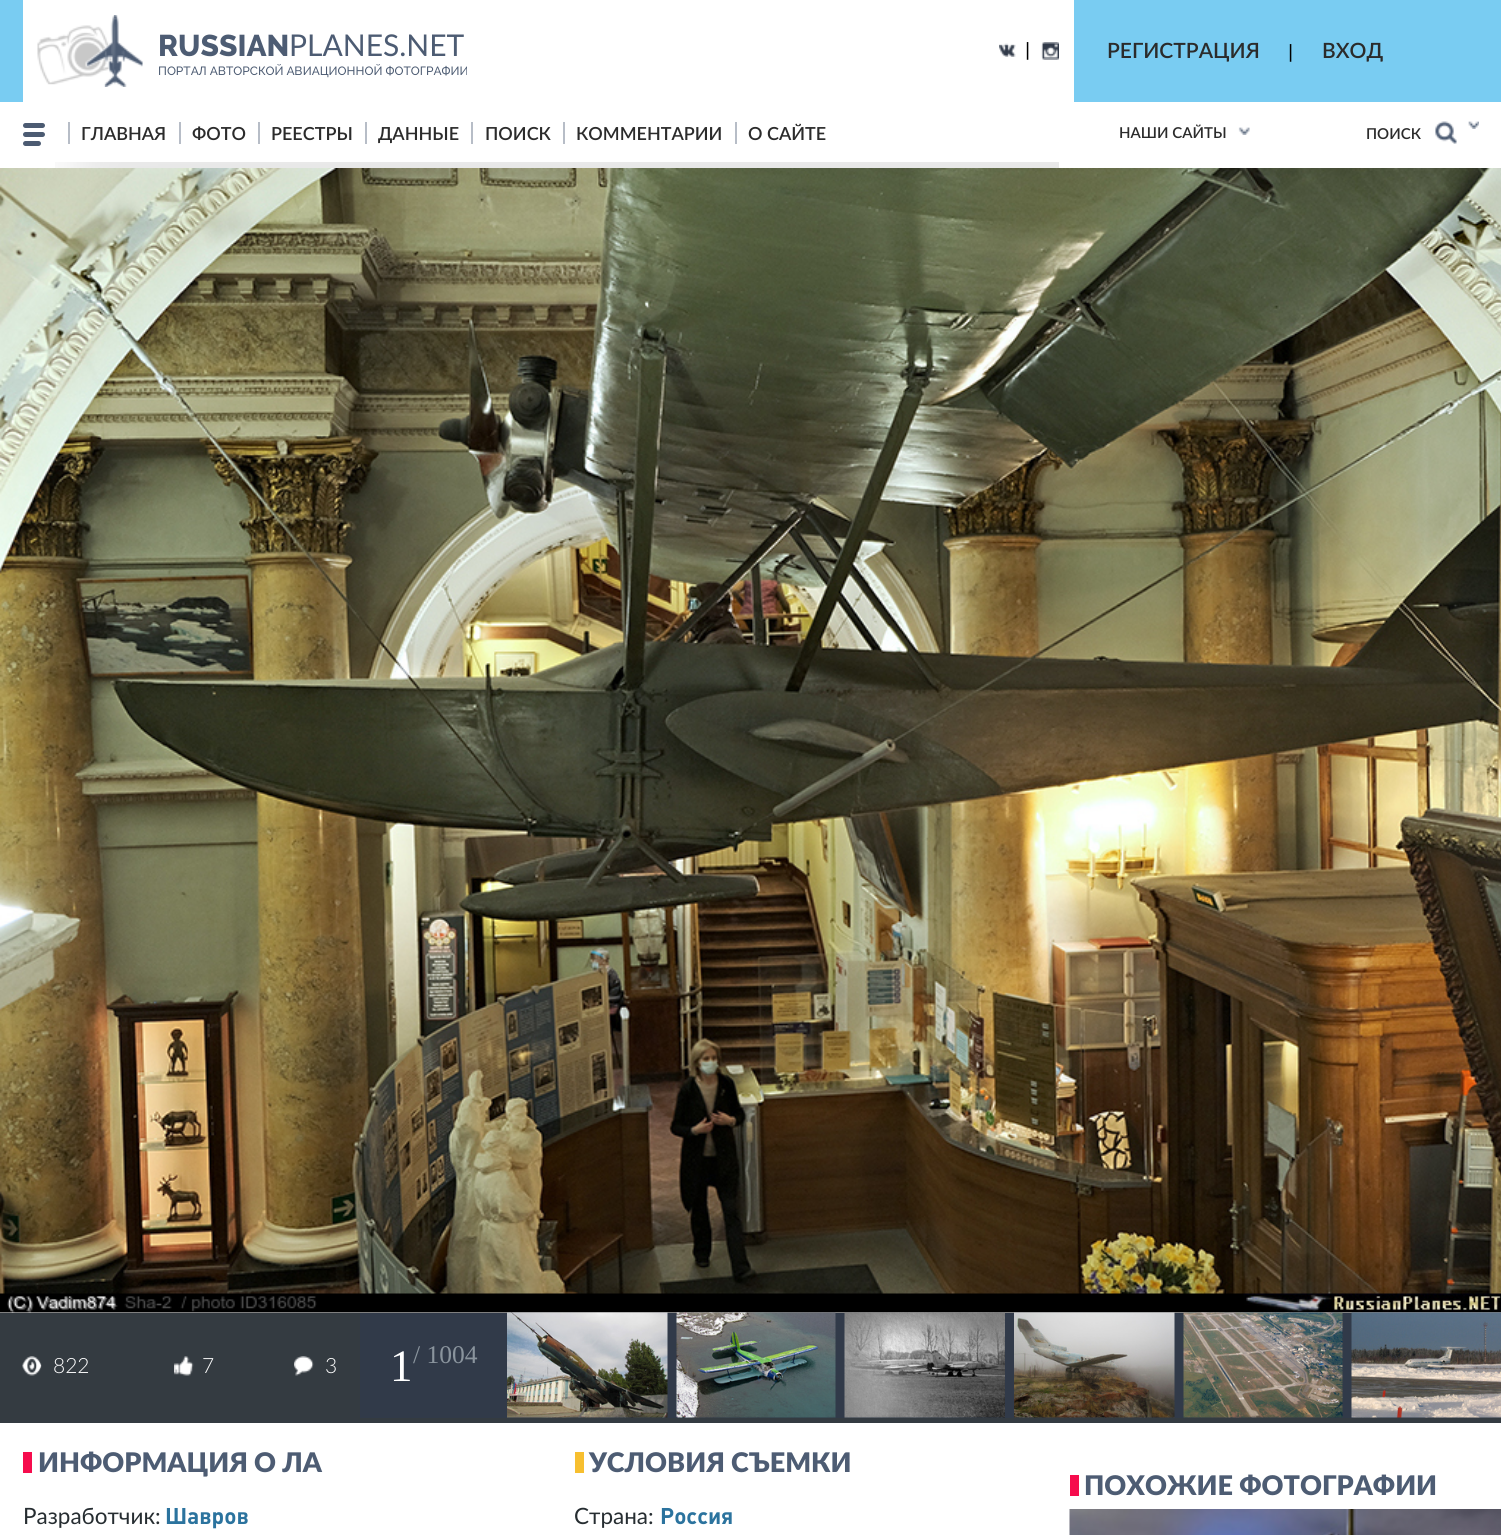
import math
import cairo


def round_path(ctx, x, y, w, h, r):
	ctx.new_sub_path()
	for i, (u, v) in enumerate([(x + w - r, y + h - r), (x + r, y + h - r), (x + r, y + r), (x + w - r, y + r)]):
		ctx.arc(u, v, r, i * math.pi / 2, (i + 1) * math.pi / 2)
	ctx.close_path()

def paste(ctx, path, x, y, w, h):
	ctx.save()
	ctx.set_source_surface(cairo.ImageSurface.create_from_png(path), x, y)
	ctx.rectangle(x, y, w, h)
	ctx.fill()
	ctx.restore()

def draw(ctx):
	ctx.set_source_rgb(1, 1, 1)
	ctx.paint()
	ctx.set_source_rgb(0.475, 0.8, 0.949)
	ctx.rectangle(0, 0, 1501, 102)
	ctx.fill()
	ctx.set_source_rgb(1, 1, 1)
	ctx.rectangle(23, 0, 1051, 102)
	ctx.fill()
	paste(ctx, 'media/1.png', 37, 15, 106, 72)
	ctx.select_font_face('Raleway ExtraBold')
	ctx.set_font_size(30)
	ctx.set_source_rgb(0.302, 0.361, 0.451)
	ctx.move_to(158, 56)
	ctx.show_text('RUSSIAN')
	ctx.select_font_face('Lato')
	ctx.move_to(289, 56)
	ctx.show_text('PLANES.NET')
	ctx.select_font_face('Raleway Medium')
	ctx.set_font_size(12)
	ctx.move_to(158, 75)
	ctx.show_text('ПОРТАЛ АВТОРСКОЙ АВИАЦИОННОЙ ФОТОГРАФИИ')
	paste(ctx, 'media/2.png', 999, 43, 17, 14)
	ctx.select_font_face('Roboto')
	ctx.set_font_size(21)
	ctx.set_source_rgb(0, 0, 0)
	ctx.move_to(1025, 57)
	ctx.show_text('|')
	paste(ctx, 'media/3.png', 1041, 42, 18, 18)
	ctx.select_font_face('Lato SemiBold')
	ctx.set_source_rgb(0.169, 0.169, 0.169)
	ctx.move_to(1107, 58)
	ctx.show_text('РЕГИСТРАЦИЯ')
	ctx.select_font_face('Roboto')
	ctx.set_source_rgb(0, 0, 0)
	ctx.move_to(1288, 59)
	ctx.show_text('|')
	ctx.select_font_face('Lato SemiBold')
	ctx.set_source_rgb(0.169, 0.169, 0.169)
	ctx.move_to(1322, 58)
	ctx.show_text('ВХОД')
	ctx.set_source_rgb(0.298, 0.357, 0.447)
	round_path(ctx, 23, 123, 22, 5, 2.5)
	ctx.fill()
	round_path(ctx, 23, 132, 22, 5, 2.5)
	ctx.fill()
	round_path(ctx, 23, 141, 18, 5, 2.5)
	ctx.fill()
	ctx.set_source_rgb(0.718, 0.741, 0.78)
	ctx.rectangle(68, 122, 2, 22)
	ctx.fill()
	ctx.set_font_size(18)
	ctx.set_source_rgb(0.169, 0.169, 0.169)
	ctx.move_to(81, 140)
	ctx.show_text('ГЛАВНАЯ')
	ctx.set_source_rgb(0.718, 0.741, 0.78)
	ctx.rectangle(179, 122, 2, 22)
	ctx.fill()
	ctx.set_source_rgb(0.169, 0.169, 0.169)
	ctx.move_to(192, 140)
	ctx.show_text('ФОТО')
	ctx.set_source_rgb(0.718, 0.741, 0.78)
	ctx.rectangle(258, 122, 2, 22)
	ctx.fill()
	ctx.set_source_rgb(0.169, 0.169, 0.169)
	ctx.move_to(271, 140)
	ctx.show_text('РЕЕСТРЫ')
	ctx.set_source_rgb(0.718, 0.741, 0.78)
	ctx.rectangle(365, 122, 2, 22)
	ctx.fill()
	ctx.set_source_rgb(0.169, 0.169, 0.169)
	ctx.move_to(378, 140)
	ctx.show_text('ДАННЫЕ')
	ctx.set_source_rgb(0.718, 0.741, 0.78)
	ctx.rectangle(471, 122, 2, 22)
	ctx.fill()
	ctx.set_source_rgb(0.169, 0.169, 0.169)
	ctx.move_to(485, 140)
	ctx.show_text('ПОИСК')
	ctx.set_source_rgb(0.718, 0.741, 0.78)
	ctx.rectangle(563, 122, 2, 22)
	ctx.fill()
	ctx.set_source_rgb(0.169, 0.169, 0.169)
	ctx.move_to(576, 140)
	ctx.show_text('КОММЕНТАРИИ')
	ctx.set_source_rgb(0.718, 0.741, 0.78)
	ctx.rectangle(735, 122, 2, 22)
	ctx.fill()
	ctx.set_source_rgb(0.169, 0.169, 0.169)
	ctx.move_to(748, 140)
	ctx.show_text('О САЙТЕ')
	paste(ctx, 'media/4.png', 55, 162, 1004, 6)
	ctx.set_font_size(15)
	ctx.move_to(1119, 138)
	ctx.show_text('НАШИ САЙТЫ')
	paste(ctx, 'media/5.png', 1238, 127, 12, 8)
	paste(ctx, 'media/6.png', 1435, 121, 22, 23)
	paste(ctx, 'media/7.png', 1468, 121, 11, 8)
	ctx.move_to(1366, 139)
	ctx.show_text('ПОИСК')
	paste(ctx, 'media/8.png', 0, 168, 1501, 1145)
	ctx.set_source_rgb(0.192, 0.227, 0.286)
	ctx.rectangle(360, 1313, 1141, 105)
	ctx.fill()
	ctx.set_source_rgb(0.204, 0.231, 0.255)
	ctx.rectangle(0, 1313, 360, 105)
	ctx.fill()
	paste(ctx, 'media/9.png', 22, 1356, 20, 20)
	ctx.select_font_face('Lato Light')
	ctx.set_font_size(21)
	ctx.set_source_rgb(1, 1, 1)
	ctx.move_to(53, 1373)
	ctx.show_text('822')
	paste(ctx, 'media/10.png', 174, 1356, 20, 20)
	ctx.move_to(202, 1373)
	ctx.show_text('7')
	paste(ctx, 'media/11.png', 294, 1356, 20, 20)
	ctx.move_to(325, 1373)
	ctx.show_text('3')
	ctx.select_font_face('Liberation Serif')
	ctx.set_font_size(45)
	ctx.move_to(390, 1381)
	ctx.show_text('1')
	ctx.set_font_size(25.5)
	ctx.set_source_rgb(0.541, 0.58, 0.616)
	ctx.move_to(413, 1363)
	ctx.show_text('/ 1004')
	paste(ctx, 'media/12.png', 507, 1312, 161, 106)
	paste(ctx, 'media/13.png', 676, 1312, 160, 106)
	paste(ctx, 'media/14.png', 844, 1312, 161, 106)
	paste(ctx, 'media/15.png', 1014, 1312, 161, 106)
	paste(ctx, 'media/16.png', 1183, 1312, 160, 106)
	paste(ctx, 'media/17.png', 1351, 1312, 150, 106)
	ctx.set_source_rgb(0.204, 0.231, 0.255)
	ctx.rectangle(0, 1418, 1501, 5)
	ctx.fill()
	ctx.set_source_rgb(0.961, 0.047, 0.302)
	ctx.rectangle(23, 1452, 9, 21)
	ctx.fill()
	ctx.select_font_face('Lato Black')
	ctx.set_font_size(27)
	ctx.set_source_rgb(0.302, 0.361, 0.451)
	ctx.move_to(38, 1472)
	ctx.show_text('ИНФОРМАЦИЯ О ЛА')
	ctx.select_font_face('Lato')
	ctx.set_font_size(22.5)
	ctx.set_source_rgb(0.149, 0.176, 0.192)
	ctx.move_to(23, 1524)
	ctx.show_text('Разработчик:')
	ctx.select_font_face('DIN', cairo.FONT_SLANT_NORMAL, cairo.FONT_WEIGHT_BOLD)
	ctx.set_source_rgb(0.169, 0.451, 0.62)
	ctx.move_to(165, 1524)
	ctx.show_text('Шавров')
	ctx.set_source_rgb(0.965, 0.749, 0.184)
	ctx.rectangle(575, 1452, 9, 21)
	ctx.fill()
	ctx.select_font_face('Lato Black')
	ctx.set_font_size(27)
	ctx.set_source_rgb(0.302, 0.361, 0.451)
	ctx.move_to(589, 1472)
	ctx.show_text('УСЛОВИЯ СЪЕМКИ')
	ctx.select_font_face('Lato')
	ctx.set_font_size(22.5)
	ctx.set_source_rgb(0.149, 0.176, 0.192)
	ctx.move_to(574, 1524)
	ctx.show_text('Страна:')
	ctx.select_font_face('DIN', cairo.FONT_SLANT_NORMAL, cairo.FONT_WEIGHT_BOLD)
	ctx.set_source_rgb(0.169, 0.451, 0.62)
	ctx.move_to(660, 1524)
	ctx.show_text('Россия')
	ctx.set_source_rgb(0.961, 0.047, 0.302)
	ctx.rectangle(1070, 1475, 9, 21)
	ctx.fill()
	ctx.select_font_face('Lato Black')
	ctx.set_font_size(27)
	ctx.set_source_rgb(0.302, 0.361, 0.451)
	ctx.move_to(1084, 1495)
	ctx.show_text('ПОХОЖИЕ ФОТОГРАФИИ')
	paste(ctx, 'media/18.png', 1069, 1509, 432, 26)


surface = cairo.ImageSurface(cairo.FORMAT_RGB24, 1501, 1535)
ctx = cairo.Context(surface)
options = cairo.FontOptions()
options.set_hint_metrics(cairo.HINT_METRICS_OFF)
options.set_hint_style(cairo.HINT_STYLE_NONE)
ctx.set_font_options(options)
ctx.set_miter_limit(4)
draw(ctx)
surface.write_to_png('image.png')
